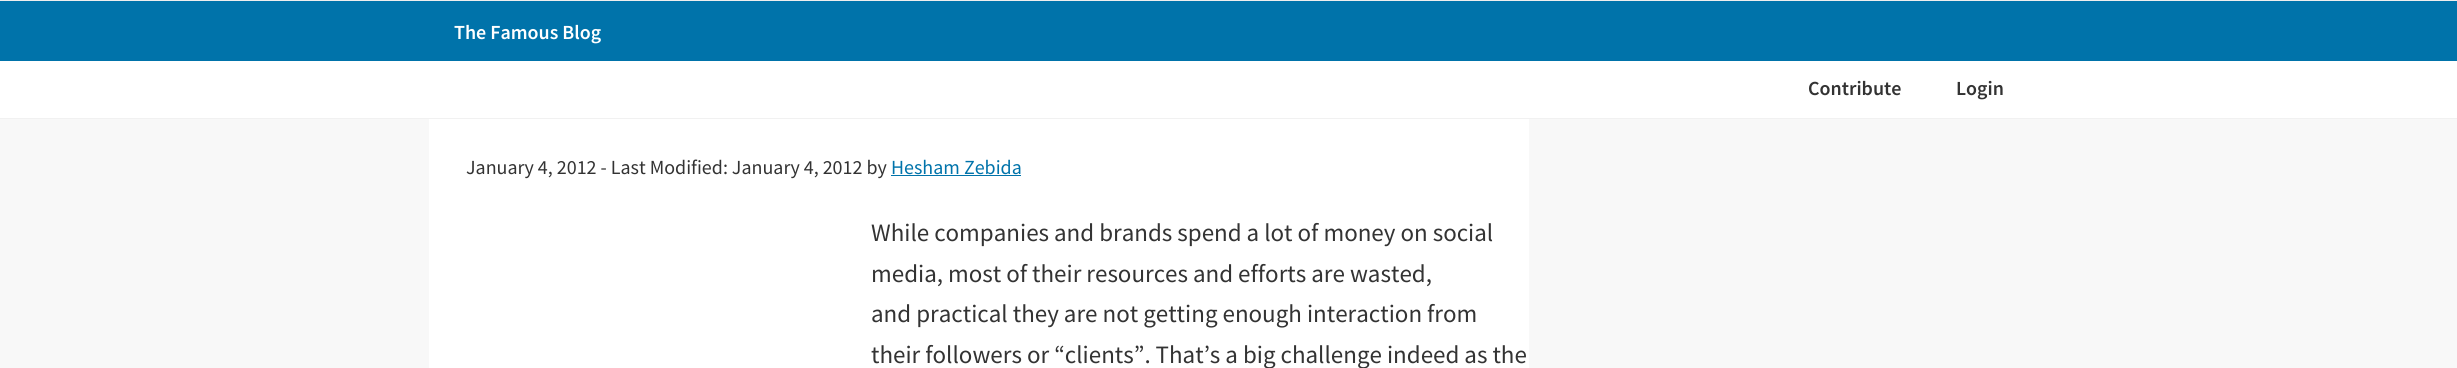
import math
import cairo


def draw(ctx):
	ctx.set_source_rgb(0.969, 0.969, 0.969)
	ctx.paint()
	ctx.set_source_rgb(0, 0.451, 0.667)
	ctx.rectangle(0, 1, 2457, 60)
	ctx.fill()
	ctx.set_source_rgb(0.933, 0.933, 0.933)
	ctx.rectangle(0, 0, 2457, 1)
	ctx.fill()
	ctx.select_font_face('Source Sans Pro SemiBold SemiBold')
	ctx.set_font_size(20)
	ctx.set_source_rgb(1, 1, 1)
	ctx.move_to(454, 39)
	ctx.show_text('The Famous Blog')
	ctx.rectangle(0, 61, 2457, 57)
	ctx.fill()
	ctx.set_source_rgb(0.945, 0.945, 0.945)
	ctx.rectangle(0, 118, 2457, 1)
	ctx.fill()
	ctx.set_source_rgb(0.2, 0.2, 0.2)
	ctx.move_to(1808, 95)
	ctx.show_text('Contribute')
	ctx.move_to(1956, 95)
	ctx.show_text('Login')
	ctx.set_source_rgb(1, 1, 1)
	ctx.rectangle(429, 119, 1100, 249)
	ctx.fill()
	ctx.select_font_face('Source Sans Pro')
	ctx.set_source_rgb(0.2, 0.2, 0.2)
	ctx.move_to(466, 174)
	ctx.show_text('January 4, 2012 - Last Modified: January 4, 2012 by')
	ctx.set_source_rgb(0, 0.451, 0.667)
	ctx.move_to(891, 174)
	ctx.show_text('Hesham Zebida')
	ctx.rectangle(891, 175, 130, 1)
	ctx.fill()
	ctx.set_font_size(25)
	ctx.set_source_rgb(0.2, 0.2, 0.2)
	for x, y, s in [
		(871, 241, 'While companies and brands spend a lot of money on social'),
		(871, 282, 'media, most of their resources and efforts are wasted,'),
		(871, 322, 'and practical they are not getting enough interaction from'),
		(871, 363, 'their followers or “clients”. That’s a big challenge indeed as the'),
	]:
		ctx.move_to(x, y)
		ctx.show_text(s)


surface = cairo.ImageSurface(cairo.FORMAT_RGB24, 2457, 368)
ctx = cairo.Context(surface)
options = cairo.FontOptions()
options.set_hint_metrics(cairo.HINT_METRICS_OFF)
options.set_hint_style(cairo.HINT_STYLE_NONE)
ctx.set_font_options(options)
ctx.set_miter_limit(4)
draw(ctx)
surface.write_to_png('image.png')
